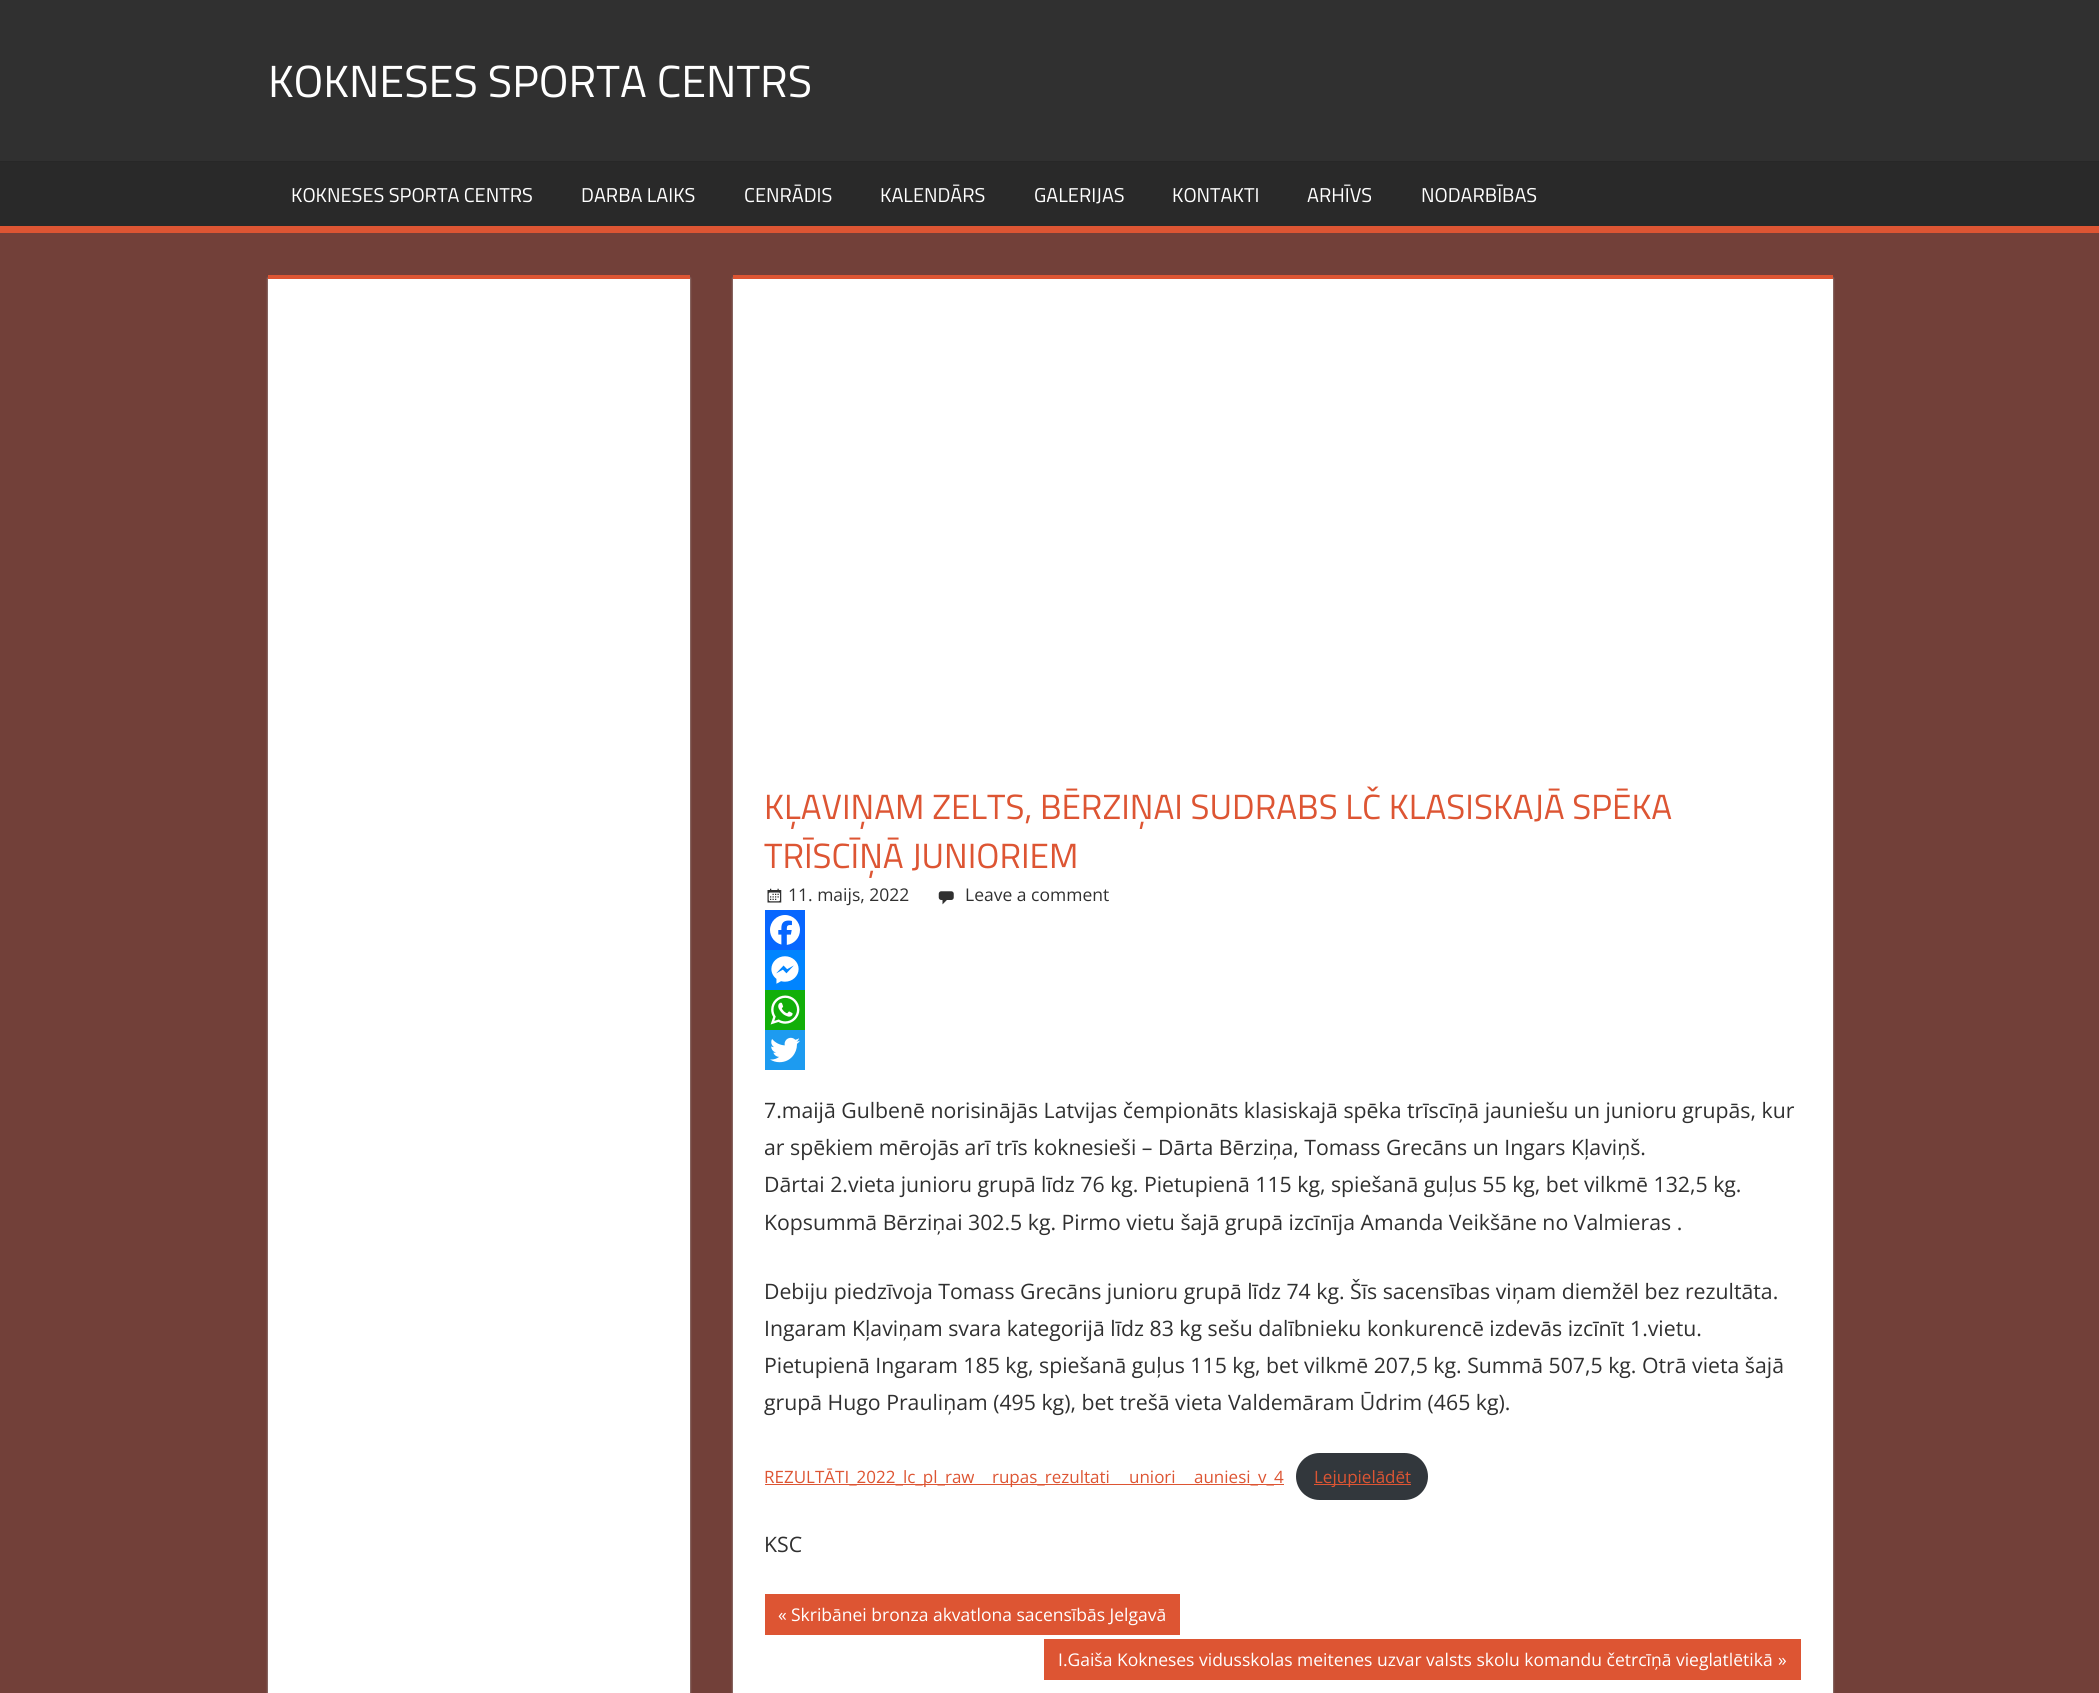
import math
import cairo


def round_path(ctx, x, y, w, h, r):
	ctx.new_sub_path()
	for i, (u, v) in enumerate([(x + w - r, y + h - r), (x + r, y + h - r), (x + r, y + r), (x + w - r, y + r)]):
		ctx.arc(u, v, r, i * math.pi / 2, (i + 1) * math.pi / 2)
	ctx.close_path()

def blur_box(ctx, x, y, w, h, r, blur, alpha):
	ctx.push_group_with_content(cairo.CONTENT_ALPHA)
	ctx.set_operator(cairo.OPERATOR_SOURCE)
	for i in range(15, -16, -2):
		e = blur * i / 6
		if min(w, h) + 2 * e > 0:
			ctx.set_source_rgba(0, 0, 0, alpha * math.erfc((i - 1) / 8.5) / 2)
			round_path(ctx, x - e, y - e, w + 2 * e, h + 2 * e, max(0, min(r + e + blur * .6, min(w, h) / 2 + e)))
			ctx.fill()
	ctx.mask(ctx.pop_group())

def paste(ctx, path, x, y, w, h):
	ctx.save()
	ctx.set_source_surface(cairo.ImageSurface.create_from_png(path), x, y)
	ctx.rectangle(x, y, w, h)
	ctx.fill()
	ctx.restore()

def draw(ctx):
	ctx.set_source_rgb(0.447, 0.251, 0.224)
	ctx.paint()
	ctx.set_source_rgb(0.188, 0.188, 0.188)
	ctx.rectangle(0, 0, 2099, 161)
	ctx.fill()
	ctx.select_font_face('Titillium Web')
	ctx.set_font_size(45)
	ctx.set_source_rgb(1, 1, 1)
	ctx.move_to(268, 97)
	ctx.show_text('KOKNESES SPORTA CENTRS')
	ctx.set_source_rgb(0.161, 0.161, 0.161)
	ctx.rectangle(0, 162, 2099, 64)
	ctx.fill()
	ctx.set_source_rgb(0.153, 0.153, 0.153)
	ctx.rectangle(0, 161, 2099, 1)
	ctx.fill()
	ctx.set_source_rgb(0.867, 0.333, 0.2)
	ctx.rectangle(0, 226, 2099, 7)
	ctx.fill()
	ctx.set_font_size(20)
	ctx.set_source_rgb(1, 1, 1)
	for x, y, s in [
		(291, 202, 'KOKNESES SPORTA CENTRS'),
		(581, 202, 'DARBA LAIKS'),
		(744, 202, 'CENRĀDIS'),
		(880, 202, 'KALENDĀRS'),
		(1034, 202, 'GALERIJAS'),
		(1172, 202, 'KONTAKTI'),
		(1307, 202, 'ARHĪVS'),
		(1421, 202, 'NODARBĪBAS'),
	]:
		ctx.move_to(x, y)
		ctx.show_text(s)
	ctx.set_source_rgb(0.667, 0.667, 0.667)
	blur_box(ctx, 268, 278, 422, 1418, 0, 1, 1)
	ctx.set_source_rgb(1, 1, 1)
	ctx.rectangle(268, 279, 422, 1414)
	ctx.fill()
	ctx.set_source_rgb(0.867, 0.333, 0.2)
	ctx.rectangle(268, 275, 422, 4)
	ctx.fill()
	ctx.set_source_rgb(0.667, 0.667, 0.667)
	blur_box(ctx, 733, 278, 1100, 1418, 0, 1, 1)
	ctx.set_source_rgb(1, 1, 1)
	ctx.rectangle(733, 279, 1100, 1414)
	ctx.fill()
	ctx.set_source_rgb(0.867, 0.333, 0.2)
	ctx.rectangle(733, 275, 1100, 4)
	ctx.fill()
	ctx.set_font_size(35)
	ctx.move_to(764, 819)
	ctx.show_text('KĻAVIŅAM ZELTS, BĒRZIŅAI SUDRABS LČ KLASISKAJĀ SPĒKA')
	ctx.move_to(764, 868)
	ctx.show_text('TRĪSCĪŅĀ JUNIORIEM')
	paste(ctx, 'media/1.png', 767, 888, 15, 15)
	ctx.select_font_face('Open Sans')
	ctx.set_font_size(17.5)
	ctx.set_source_rgb(0.188, 0.188, 0.188)
	ctx.move_to(788, 901)
	ctx.show_text('11. maijs, 2022')
	paste(ctx, 'media/2.png', 938, 891, 16, 14)
	ctx.move_to(965, 901)
	ctx.show_text('Leave a comment')
	ctx.set_source_rgb(0.031, 0.4, 1)
	ctx.rectangle(765, 910, 40, 40)
	ctx.fill()
	paste(ctx, 'media/3.png', 770, 915, 30, 30)
	ctx.set_source_rgb(0, 0.518, 1)
	ctx.rectangle(765, 950, 40, 40)
	ctx.fill()
	paste(ctx, 'media/4.png', 771, 956, 28, 28)
	ctx.set_source_rgb(0.071, 0.686, 0.039)
	ctx.rectangle(765, 990, 40, 40)
	ctx.fill()
	paste(ctx, 'media/5.png', 770, 995, 30, 30)
	ctx.set_source_rgb(0.114, 0.608, 0.941)
	ctx.rectangle(765, 1030, 40, 40)
	ctx.fill()
	paste(ctx, 'media/6.png', 770, 1037, 30, 26)
	ctx.set_font_size(21.25)
	ctx.set_source_rgb(0.188, 0.188, 0.188)
	for x, y, s in [
		(764, 1118, '7.maijā Gulbenē norisinājās Latvijas čempionāts klasiskajā spēka trīscīņā jauniešu un junioru grupās, kur'),
		(764, 1155, 'ar spēkiem mērojās arī trīs koknesieši – Dārta Bērziņa, Tomass Grecāns un Ingars Kļaviņš.'),
		(764, 1192, 'Dārtai 2.vieta junioru grupā līdz 76 kg. Pietupienā 115 kg, spiešanā guļus 55 kg, bet vilkmē 132,5 kg.'),
		(764, 1230, 'Kopsummā Bērziņai 302.5 kg. Pirmo vietu šajā grupā izcīnīja Amanda Veikšāne no Valmieras .'),
		(764, 1299, 'Debiju piedzīvoja Tomass Grecāns junioru grupā līdz 74 kg. Šīs sacensības viņam diemžēl bez rezultāta.'),
		(764, 1336, 'Ingaram Kļaviņam svara kategorijā līdz 83 kg sešu dalībnieku konkurencē izdevās izcīnīt 1.vietu.'),
		(764, 1373, 'Pietupienā Ingaram 185 kg, spiešanā guļus 115 kg, bet vilkmē 207,5 kg. Summā 507,5 kg. Otrā vieta šajā'),
		(764, 1410, 'grupā Hugo Prauliņam (495 kg), bet trešā vieta Valdemāram Ūdrim (465 kg).'),
	]:
		ctx.move_to(x, y)
		ctx.show_text(s)
	ctx.set_source_rgb(0.867, 0.333, 0.2)
	ctx.rectangle(765, 1484, 519, 1)
	ctx.fill()
	ctx.set_font_size(17)
	for x, y, s in [
		(764, 1483, 'REZULTĀTI_2022_lc_pl_raw'),
		(992, 1483, 'rupas_rezultati'),
		(1129, 1483, 'uniori'),
		(1194, 1483, 'auniesi_v_4'),
	]:
		ctx.move_to(x, y)
		ctx.show_text(s)
	ctx.set_source_rgb(0.196, 0.216, 0.235)
	round_path(ctx, 1296, 1453, 132, 47, 23.5)
	ctx.fill()
	ctx.set_source_rgb(0.867, 0.333, 0.2)
	ctx.rectangle(1314, 1484, 97, 1)
	ctx.fill()
	ctx.move_to(1314, 1483)
	ctx.show_text('Lejupielādēt')
	ctx.set_font_size(21.25)
	ctx.set_source_rgb(0.188, 0.188, 0.188)
	ctx.move_to(764, 1552)
	ctx.show_text('KSC')
	ctx.set_source_rgb(0.867, 0.333, 0.2)
	ctx.rectangle(765, 1594, 415, 41)
	ctx.fill()
	ctx.set_font_size(17.5)
	ctx.set_source_rgb(1, 1, 1)
	ctx.move_to(778, 1621)
	ctx.show_text('«')
	ctx.move_to(791, 1621)
	ctx.show_text('Skribānei bronza akvatlona sacensībās Jelgavā')
	ctx.set_source_rgb(0.867, 0.333, 0.2)
	ctx.rectangle(1044, 1639, 757, 41)
	ctx.fill()
	ctx.set_source_rgb(1, 1, 1)
	ctx.move_to(1058, 1666)
	ctx.show_text('I.Gaiša Kokneses vidusskolas meitenes uzvar valsts skolu komandu četrcīņā vieglatlētikā')
	ctx.move_to(1778, 1666)
	ctx.show_text('»')


surface = cairo.ImageSurface(cairo.FORMAT_RGB24, 2099, 1693)
ctx = cairo.Context(surface)
options = cairo.FontOptions()
options.set_hint_metrics(cairo.HINT_METRICS_OFF)
options.set_hint_style(cairo.HINT_STYLE_NONE)
ctx.set_font_options(options)
ctx.set_miter_limit(4)
draw(ctx)
surface.write_to_png('image.png')
